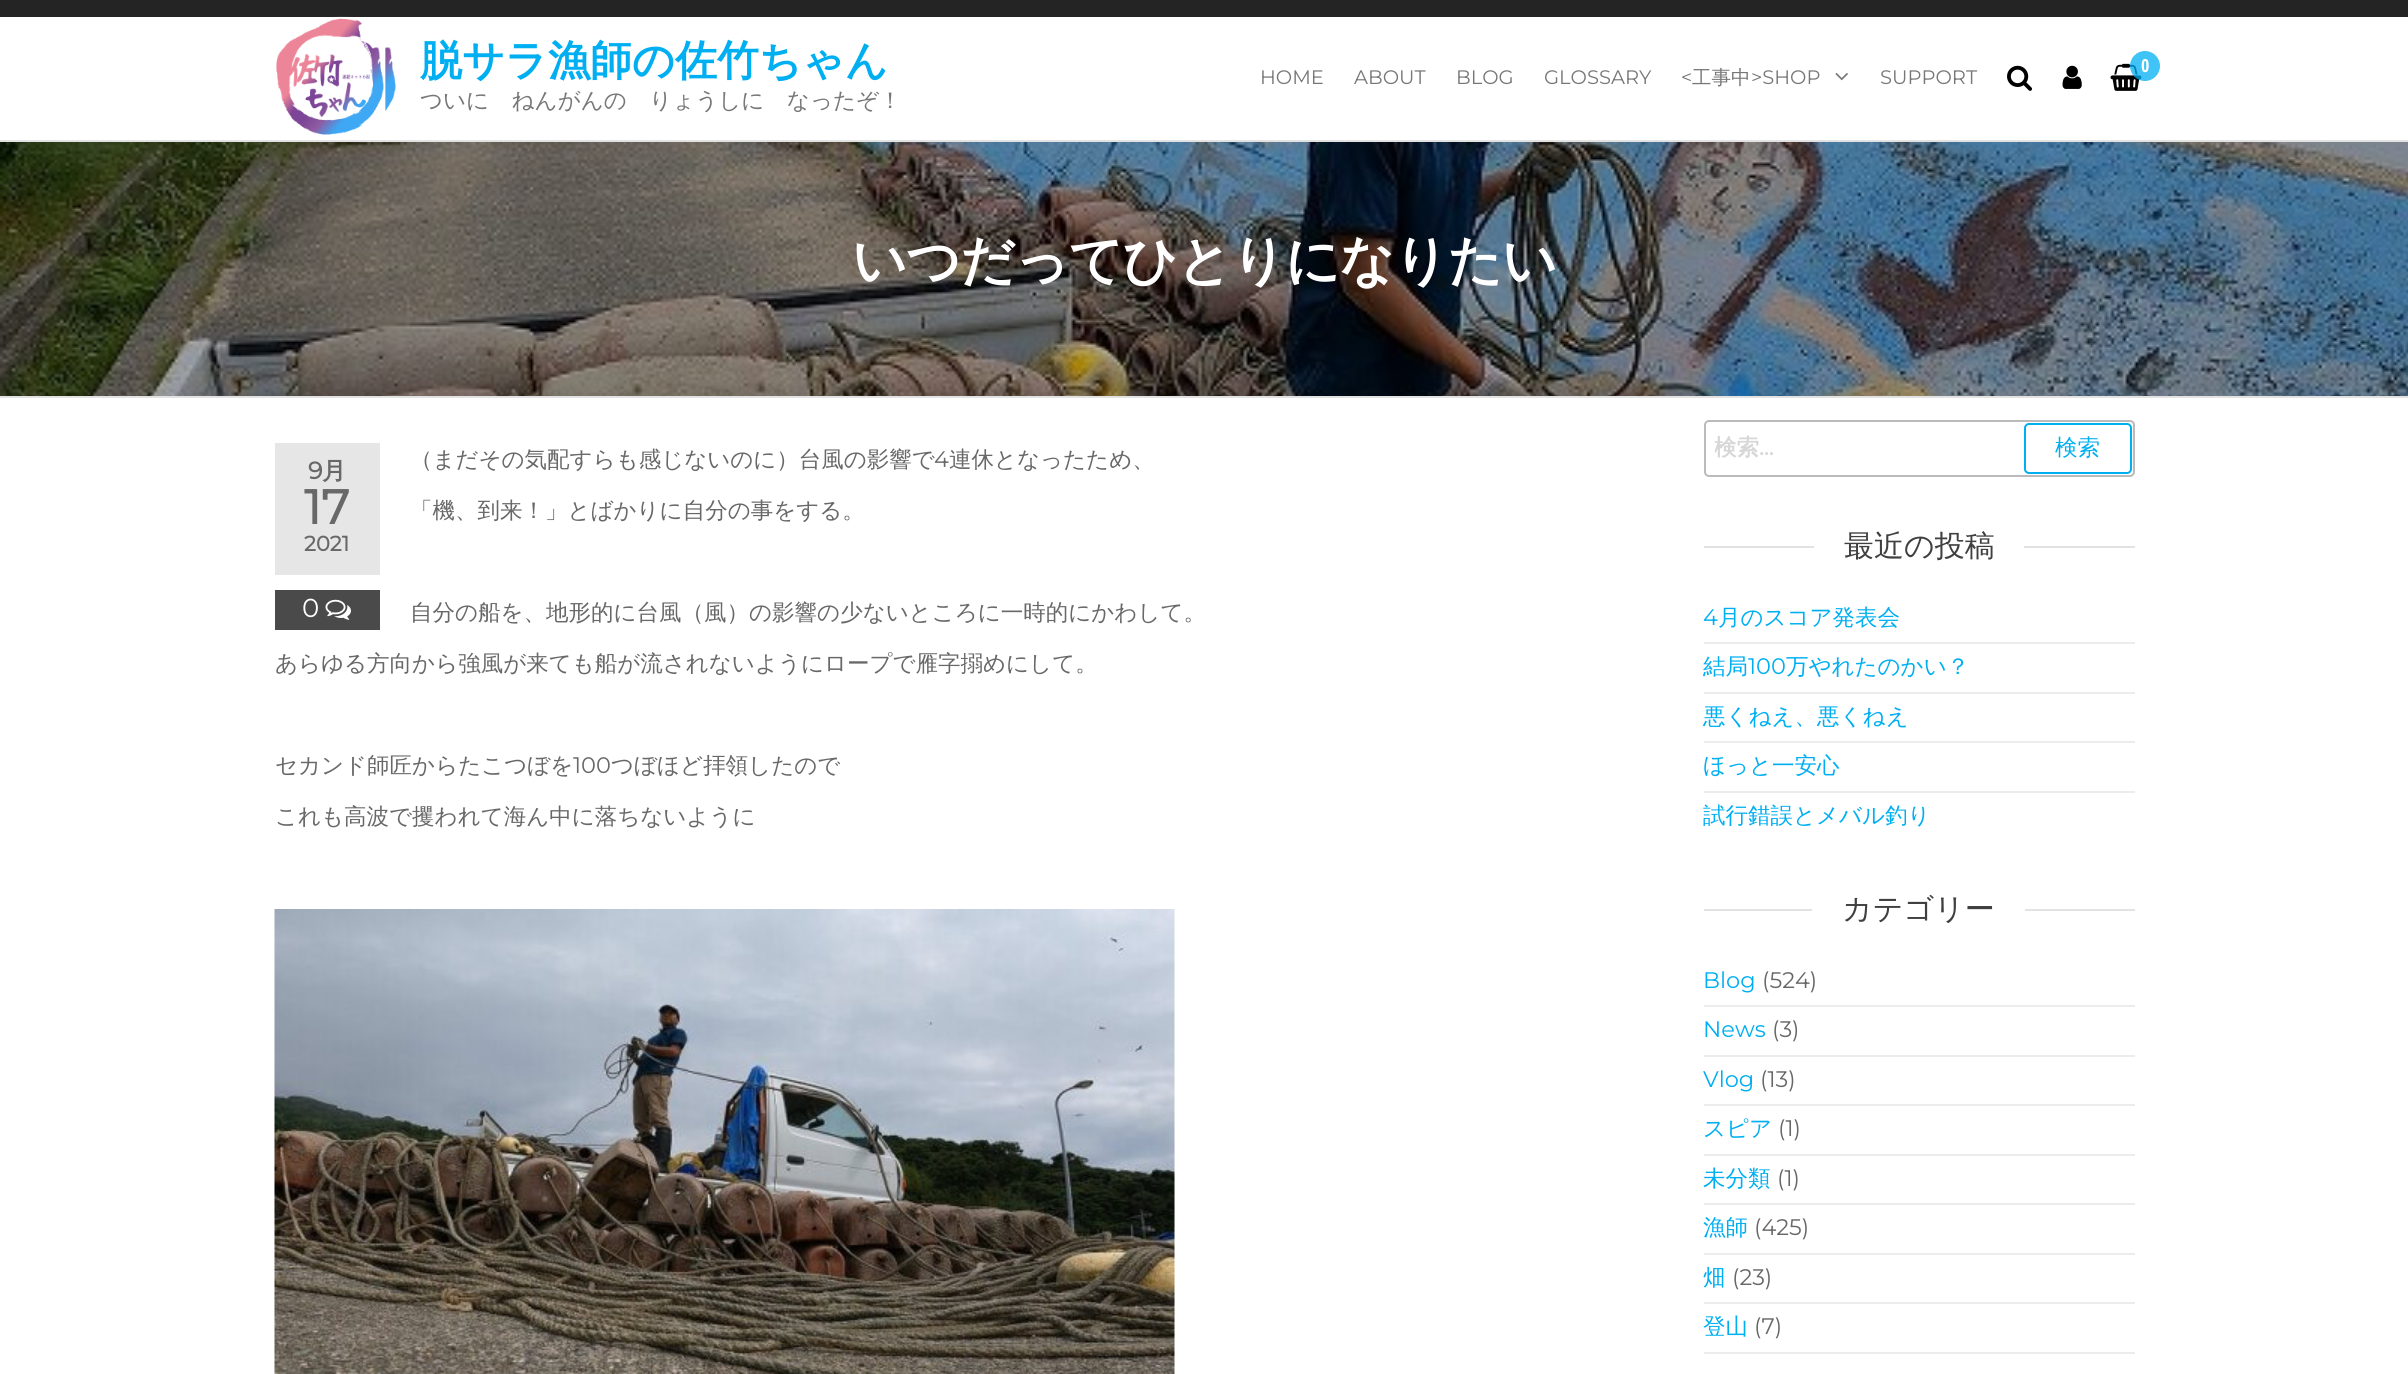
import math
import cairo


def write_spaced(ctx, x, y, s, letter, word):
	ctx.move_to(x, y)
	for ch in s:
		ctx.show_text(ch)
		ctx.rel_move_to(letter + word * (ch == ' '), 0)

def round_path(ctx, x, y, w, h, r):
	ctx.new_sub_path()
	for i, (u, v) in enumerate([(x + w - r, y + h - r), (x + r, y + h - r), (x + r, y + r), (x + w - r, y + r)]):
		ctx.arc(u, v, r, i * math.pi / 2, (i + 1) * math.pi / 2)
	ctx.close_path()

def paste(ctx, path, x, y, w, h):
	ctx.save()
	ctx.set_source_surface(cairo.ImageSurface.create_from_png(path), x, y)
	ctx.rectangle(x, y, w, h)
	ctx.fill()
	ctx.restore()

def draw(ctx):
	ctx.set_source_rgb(1, 1, 1)
	ctx.paint()
	ctx.set_source_rgb(0.141, 0.141, 0.141)
	ctx.rectangle(0, 0, 2408, 17)
	ctx.fill()
	ctx.set_source_rgb(0.886, 0.886, 0.886)
	ctx.rectangle(0, 140, 2408, 2)
	ctx.fill()
	paste(ctx, 'media/1.png', 276, 16, 120, 119)
	ctx.select_font_face('WenQuanYi Zen Hei', cairo.FONT_SLANT_NORMAL, cairo.FONT_WEIGHT_BOLD)
	ctx.set_font_size(42)
	ctx.set_source_rgb(0, 0.686, 0.949)
	ctx.move_to(420, 75)
	ctx.show_text('脱サラ漁師の佐竹ちゃん')
	ctx.select_font_face('WenQuanYi Zen Hei Medium')
	ctx.set_font_size(22.5)
	ctx.set_source_rgb(0.467, 0.467, 0.467)
	ctx.move_to(420, 108)
	ctx.show_text('ついに　ねんがんの　りょうしに　なったぞ！')
	paste(ctx, 'media/2.png', 2007, 65, 25, 26)
	paste(ctx, 'media/3.png', 2062, 65, 20, 24)
	paste(ctx, 'media/4.png', 2110, 63, 32, 28)
	ctx.set_source_rgba(0, 0.686, 0.949, 0.75)
	ctx.arc(2145, 66, 15, 0, 2 * math.pi)
	ctx.fill()
	ctx.select_font_face('Open Sans Condensed', cairo.FONT_SLANT_NORMAL, cairo.FONT_WEIGHT_BOLD)
	ctx.set_font_size(18)
	ctx.set_source_rgb(1, 1, 1)
	ctx.move_to(2141, 72)
	ctx.show_text('0')
	ctx.select_font_face('Montserrat Thin')
	ctx.set_font_size(19.5)
	ctx.set_source_rgb(0.467, 0.467, 0.467)
	for x, y, s in [
		(1260, 84, 'HOME'),
		(1354, 84, 'ABOUT'),
		(1456, 84, 'BLOG'),
		(1544, 84, 'GLOSSARY'),
		(1681, 84, '<'),
	]:
		ctx.move_to(x, y)
		ctx.show_text(s)
	ctx.select_font_face('WenQuanYi Zen Hei Medium')
	ctx.move_to(1692, 84)
	ctx.show_text('工事中')
	ctx.select_font_face('Montserrat Thin')
	ctx.move_to(1751, 84)
	ctx.show_text('>SHOP')
	paste(ctx, 'media/5.png', 1835, 73, 13, 8)
	ctx.move_to(1880, 84)
	ctx.show_text('SUPPORT')
	paste(ctx, 'media/6.png', 0, 142, 2408, 254)
	ctx.set_source_rgb(0.886, 0.886, 0.886)
	ctx.rectangle(0, 396, 2408, 2)
	ctx.fill()
	ctx.select_font_face('WenQuanYi Zen Hei', cairo.FONT_SLANT_NORMAL, cairo.FONT_WEIGHT_BOLD)
	ctx.set_font_size(54)
	ctx.set_source_rgb(1, 1, 1)
	write_spaced(ctx, 852, 279, 'いつだってひとりになりたい', -1.1, 0)
	ctx.set_source_rgb(0.902, 0.902, 0.902)
	ctx.rectangle(275, 443, 105, 132)
	ctx.fill()
	ctx.select_font_face('Montserrat', cairo.FONT_SLANT_NORMAL, cairo.FONT_WEIGHT_BOLD)
	ctx.set_font_size(24)
	ctx.set_source_rgb(0.408, 0.408, 0.408)
	ctx.move_to(308, 479)
	ctx.show_text('9')
	ctx.select_font_face('WenQuanYi Zen Hei', cairo.FONT_SLANT_NORMAL, cairo.FONT_WEIGHT_BOLD)
	ctx.move_to(322, 479)
	ctx.show_text('月')
	ctx.select_font_face('Montserrat', cairo.FONT_SLANT_NORMAL, cairo.FONT_WEIGHT_BOLD)
	ctx.set_font_size(48)
	ctx.move_to(304, 524)
	ctx.show_text('17')
	ctx.set_font_size(21)
	ctx.move_to(304, 551)
	ctx.show_text('2021')
	ctx.set_source_rgb(0.29, 0.29, 0.29)
	ctx.rectangle(275, 590, 105, 40)
	ctx.fill()
	ctx.select_font_face('Montserrat Thin')
	ctx.set_font_size(26)
	ctx.set_source_rgb(1, 1, 1)
	ctx.move_to(302, 617)
	ctx.show_text('0')
	paste(ctx, 'media/7.png', 325, 599, 26, 21)
	ctx.select_font_face('WenQuanYi Zen Hei Medium')
	ctx.set_font_size(22.5)
	ctx.set_source_rgb(0.408, 0.408, 0.408)
	ctx.move_to(410, 467)
	ctx.show_text('（まだその気配すらも感じないのに）台風の影響で')
	ctx.select_font_face('Montserrat Thin')
	ctx.move_to(934, 467)
	ctx.show_text('4')
	ctx.select_font_face('WenQuanYi Zen Hei Medium')
	for x, y, s in [
		(949, 467, '連休となったため、'),
		(410, 518, '「機、到来！」とばかりに自分の事をする。'),
		(410, 620, '自分の船を、地形的に台風（風）の影響の少ないところに一時的にかわして。'),
		(275, 671, 'あらゆる方向から強風が来ても船が流されないようにロープで雁字搦めにして。'),
		(275, 773, 'セカンド師匠からたこつぼを'),
	]:
		ctx.move_to(x, y)
		ctx.show_text(s)
	ctx.select_font_face('Montserrat Thin')
	ctx.move_to(573, 773)
	ctx.show_text('100')
	ctx.select_font_face('WenQuanYi Zen Hei Medium')
	ctx.move_to(611, 773)
	ctx.show_text('つぼほど拝領したので')
	ctx.move_to(275, 824)
	ctx.show_text('これも高波で攫われて海ん中に落ちないように')
	paste(ctx, 'media/8.png', 274, 909, 901, 465)
	round_path(ctx, 1705, 421, 429, 55, 4)
	ctx.set_source_rgb(0.733, 0.733, 0.733)
	ctx.stroke()
	ctx.save()
	ctx.rectangle(1715, 434, 277, 30)
	ctx.clip()
	ctx.select_font_face('WenQuanYi Zen Hei', cairo.FONT_SLANT_NORMAL, cairo.FONT_WEIGHT_BOLD)
	ctx.set_source_rgb(0.843, 0.843, 0.843)
	ctx.move_to(1714, 455)
	ctx.show_text('検索')
	ctx.restore()
	ctx.select_font_face('Montserrat', cairo.FONT_SLANT_NORMAL, cairo.FONT_WEIGHT_BOLD)
	ctx.set_source_rgb(0.843, 0.843, 0.843)
	ctx.move_to(1759, 455)
	ctx.show_text('…')
	round_path(ctx, 2025, 424, 106, 49, 4)
	ctx.set_source_rgb(0, 0.686, 0.949)
	ctx.stroke()
	ctx.select_font_face('WenQuanYi Zen Hei Medium')
	ctx.move_to(2055, 455)
	ctx.show_text('検索')
	ctx.set_source_rgb(0.886, 0.886, 0.886)
	ctx.rectangle(1704, 546, 431, 2)
	ctx.fill()
	ctx.set_source_rgb(1, 1, 1)
	ctx.rectangle(1814, 546, 210, 2)
	ctx.fill()
	ctx.set_font_size(30)
	ctx.set_source_rgb(0.251, 0.251, 0.251)
	ctx.move_to(1844, 556)
	ctx.show_text('最近の投稿')
	ctx.set_source_rgb(0.922, 0.922, 0.922)
	ctx.rectangle(1704, 642, 431, 2)
	ctx.fill()
	ctx.select_font_face('Montserrat Thin')
	ctx.set_font_size(22.5)
	ctx.set_source_rgb(0, 0.686, 0.949)
	ctx.move_to(1703, 625)
	ctx.show_text('4')
	ctx.select_font_face('WenQuanYi Zen Hei Medium')
	ctx.move_to(1718, 625)
	ctx.show_text('月のスコア発表会')
	ctx.set_source_rgb(0.922, 0.922, 0.922)
	ctx.rectangle(1704, 692, 431, 2)
	ctx.fill()
	ctx.set_source_rgb(0, 0.686, 0.949)
	ctx.move_to(1703, 674)
	ctx.show_text('結局')
	ctx.select_font_face('Montserrat Thin')
	ctx.move_to(1748, 674)
	ctx.show_text('100')
	ctx.select_font_face('WenQuanYi Zen Hei Medium')
	ctx.move_to(1786, 674)
	ctx.show_text('万やれたのかい？')
	ctx.set_source_rgb(0.922, 0.922, 0.922)
	ctx.rectangle(1704, 741, 431, 2)
	ctx.fill()
	ctx.set_source_rgb(0, 0.686, 0.949)
	ctx.move_to(1703, 724)
	ctx.show_text('悪くねえ、悪くねえ')
	ctx.set_source_rgb(0.922, 0.922, 0.922)
	ctx.rectangle(1704, 791, 431, 2)
	ctx.fill()
	ctx.set_source_rgb(0, 0.686, 0.949)
	ctx.move_to(1703, 773)
	ctx.show_text('ほっと一安心')
	ctx.move_to(1703, 823)
	ctx.show_text('試行錯誤とメバル釣り')
	ctx.set_source_rgb(0.886, 0.886, 0.886)
	ctx.rectangle(1704, 909, 431, 2)
	ctx.fill()
	ctx.set_source_rgb(1, 1, 1)
	ctx.rectangle(1812, 909, 213, 2)
	ctx.fill()
	ctx.set_font_size(30)
	ctx.set_source_rgb(0.251, 0.251, 0.251)
	ctx.move_to(1842, 919)
	ctx.show_text('カテゴリー')
	ctx.set_source_rgb(0.922, 0.922, 0.922)
	ctx.rectangle(1704, 1005, 431, 2)
	ctx.fill()
	ctx.select_font_face('Montserrat Thin')
	ctx.set_font_size(22.5)
	ctx.set_source_rgb(0, 0.686, 0.949)
	ctx.move_to(1703, 988)
	ctx.show_text('Blog')
	ctx.set_source_rgb(0.408, 0.408, 0.408)
	ctx.move_to(1762, 988)
	ctx.show_text('(524)')
	ctx.set_source_rgb(0.922, 0.922, 0.922)
	ctx.rectangle(1704, 1055, 431, 2)
	ctx.fill()
	ctx.set_source_rgb(0, 0.686, 0.949)
	ctx.move_to(1703, 1037)
	ctx.show_text('News')
	ctx.set_source_rgb(0.408, 0.408, 0.408)
	ctx.move_to(1772, 1037)
	ctx.show_text('(3)')
	ctx.set_source_rgb(0.922, 0.922, 0.922)
	ctx.rectangle(1704, 1104, 431, 2)
	ctx.fill()
	ctx.set_source_rgb(0, 0.686, 0.949)
	ctx.move_to(1703, 1087)
	ctx.show_text('Vlog')
	ctx.set_source_rgb(0.408, 0.408, 0.408)
	ctx.move_to(1760, 1087)
	ctx.show_text('(13)')
	ctx.set_source_rgb(0.922, 0.922, 0.922)
	ctx.rectangle(1704, 1154, 431, 2)
	ctx.fill()
	ctx.select_font_face('WenQuanYi Zen Hei Medium')
	ctx.set_source_rgb(0, 0.686, 0.949)
	ctx.move_to(1703, 1136)
	ctx.show_text('スピア')
	ctx.select_font_face('Montserrat Thin')
	ctx.set_source_rgb(0.408, 0.408, 0.408)
	ctx.move_to(1778, 1136)
	ctx.show_text('(1)')
	ctx.set_source_rgb(0.922, 0.922, 0.922)
	ctx.rectangle(1704, 1203, 431, 2)
	ctx.fill()
	ctx.select_font_face('WenQuanYi Zen Hei Medium')
	ctx.set_source_rgb(0, 0.686, 0.949)
	ctx.move_to(1703, 1186)
	ctx.show_text('未分類')
	ctx.select_font_face('Montserrat Thin')
	ctx.set_source_rgb(0.408, 0.408, 0.408)
	ctx.move_to(1777, 1186)
	ctx.show_text('(1)')
	ctx.set_source_rgb(0.922, 0.922, 0.922)
	ctx.rectangle(1704, 1253, 431, 2)
	ctx.fill()
	ctx.select_font_face('WenQuanYi Zen Hei Medium')
	ctx.set_source_rgb(0, 0.686, 0.949)
	ctx.move_to(1703, 1235)
	ctx.show_text('漁師')
	ctx.select_font_face('Montserrat Thin')
	ctx.set_source_rgb(0.408, 0.408, 0.408)
	ctx.move_to(1754, 1235)
	ctx.show_text('(425)')
	ctx.set_source_rgb(0.922, 0.922, 0.922)
	ctx.rectangle(1704, 1302, 431, 2)
	ctx.fill()
	ctx.select_font_face('WenQuanYi Zen Hei Medium')
	ctx.set_source_rgb(0, 0.686, 0.949)
	ctx.move_to(1703, 1285)
	ctx.show_text('畑')
	ctx.select_font_face('Montserrat Thin')
	ctx.set_source_rgb(0.408, 0.408, 0.408)
	ctx.move_to(1732, 1285)
	ctx.show_text('(23)')
	ctx.set_source_rgb(0.922, 0.922, 0.922)
	ctx.rectangle(1704, 1352, 431, 2)
	ctx.fill()
	ctx.select_font_face('WenQuanYi Zen Hei Medium')
	ctx.set_source_rgb(0, 0.686, 0.949)
	ctx.move_to(1703, 1334)
	ctx.show_text('登山')
	ctx.select_font_face('Montserrat Thin')
	ctx.set_source_rgb(0.408, 0.408, 0.408)
	ctx.move_to(1754, 1334)
	ctx.show_text('(7)')


surface = cairo.ImageSurface(cairo.FORMAT_RGB24, 2408, 1374)
ctx = cairo.Context(surface)
options = cairo.FontOptions()
options.set_hint_metrics(cairo.HINT_METRICS_OFF)
options.set_hint_style(cairo.HINT_STYLE_NONE)
ctx.set_font_options(options)
ctx.set_miter_limit(4)
draw(ctx)
surface.write_to_png('image.png')
